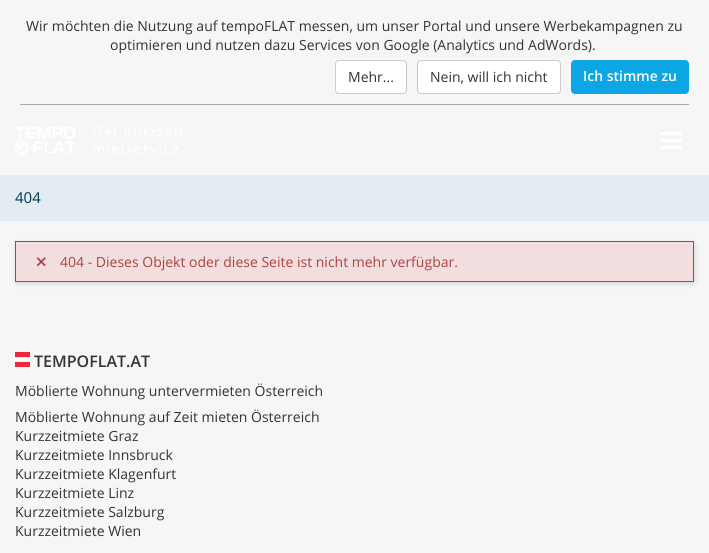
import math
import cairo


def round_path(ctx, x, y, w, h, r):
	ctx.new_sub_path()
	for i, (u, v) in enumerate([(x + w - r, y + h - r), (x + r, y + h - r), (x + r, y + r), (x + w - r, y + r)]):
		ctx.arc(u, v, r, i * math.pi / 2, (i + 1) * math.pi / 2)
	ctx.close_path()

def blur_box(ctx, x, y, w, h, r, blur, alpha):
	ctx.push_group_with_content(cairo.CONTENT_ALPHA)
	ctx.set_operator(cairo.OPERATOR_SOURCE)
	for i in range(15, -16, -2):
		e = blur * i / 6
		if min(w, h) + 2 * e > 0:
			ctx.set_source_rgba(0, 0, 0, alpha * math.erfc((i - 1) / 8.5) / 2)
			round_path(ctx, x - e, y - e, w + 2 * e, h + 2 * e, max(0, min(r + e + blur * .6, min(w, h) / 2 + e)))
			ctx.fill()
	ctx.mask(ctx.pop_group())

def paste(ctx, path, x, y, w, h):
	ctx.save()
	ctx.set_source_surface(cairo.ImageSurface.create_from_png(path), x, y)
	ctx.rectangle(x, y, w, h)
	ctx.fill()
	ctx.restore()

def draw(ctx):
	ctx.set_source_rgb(0.961, 0.961, 0.961)
	ctx.paint()
	ctx.set_source_rgb(0.663, 0.663, 0.663)
	ctx.rectangle(20, 104, 669, 1)
	ctx.fill()
	ctx.select_font_face('Open Sans')
	ctx.set_font_size(14)
	ctx.set_source_rgb(0.2, 0.2, 0.2)
	ctx.move_to(26, 31)
	ctx.show_text('Wir möchten die Nutzung auf tempoFLAT messen, um unser Portal und unsere Werbekampagnen zu')
	ctx.move_to(110, 50)
	ctx.show_text('optimieren und nutzen dazu Services von Google (Analytics und AdWords).')
	ctx.set_source_rgb(1, 1, 1)
	round_path(ctx, 335.5, 60.5, 71, 33, 3.5)
	ctx.fill_preserve()
	ctx.set_source_rgb(0.8, 0.8, 0.8)
	ctx.set_line_width(1)
	ctx.stroke()
	ctx.set_source_rgb(0.2, 0.2, 0.2)
	ctx.move_to(348, 82)
	ctx.show_text('Mehr...')
	ctx.set_source_rgb(1, 1, 1)
	round_path(ctx, 417.5, 60.5, 143, 33, 3.5)
	ctx.fill_preserve()
	ctx.set_source_rgb(0.8, 0.8, 0.8)
	ctx.stroke()
	ctx.set_source_rgb(0.2, 0.2, 0.2)
	ctx.move_to(430, 82)
	ctx.show_text('Nein, will ich nicht')
	ctx.set_source_rgb(0.051, 0.651, 0.898)
	round_path(ctx, 571, 60, 118, 34, 4)
	ctx.fill()
	ctx.select_font_face('Open Sans SemiBold')
	ctx.set_source_rgb(1, 1, 1)
	ctx.move_to(583, 81)
	ctx.show_text('Ich stimme zu')
	paste(ctx, 'media/1.png', 15, 126, 175, 30)
	round_path(ctx, 660, 132, 22, 3, 1)
	ctx.fill()
	round_path(ctx, 660, 139, 22, 3, 1)
	ctx.fill()
	round_path(ctx, 660, 146, 22, 3, 1)
	ctx.fill()
	ctx.set_source_rgb(0.89, 0.925, 0.949)
	ctx.rectangle(0, 175, 709, 46)
	ctx.fill()
	ctx.select_font_face('Open Sans')
	ctx.set_font_size(15)
	ctx.set_source_rgb(0, 0.224, 0.322)
	ctx.move_to(15, 203)
	ctx.show_text('404')
	ctx.set_source_rgb(0, 0, 0)
	blur_box(ctx, 15, 242, 681, 43, 3, 2, 0.1)
	ctx.set_source_rgb(0.949, 0.871, 0.871)
	ctx.rectangle(15.5, 241.5, 678, 40)
	ctx.fill_preserve()
	ctx.set_source_rgb(0.663, 0.267, 0.259)
	ctx.stroke()
	paste(ctx, 'media/2.png', 36, 257, 10, 10)
	ctx.set_font_size(14)
	ctx.move_to(60, 267)
	ctx.show_text('404 - Dieses Objekt oder diese Seite ist nicht mehr verfügbar.')
	paste(ctx, 'media/3.png', 15, 352, 15, 15)
	ctx.select_font_face('Open Sans SemiBold')
	ctx.set_font_size(16)
	ctx.set_source_rgb(0.2, 0.2, 0.2)
	ctx.move_to(34, 367)
	ctx.show_text('TEMPOFLAT.AT')
	ctx.select_font_face('Open Sans')
	ctx.set_font_size(14)
	for x, y, s in [
		(15, 396, 'Möblierte Wohnung untervermieten Österreich'),
		(15, 422, 'Möblierte Wohnung auf Zeit mieten Österreich'),
		(15, 441, 'Kurzzeitmiete Graz'),
		(15, 460, 'Kurzzeitmiete Innsbruck'),
		(15, 479, 'Kurzzeitmiete Klagenfurt'),
		(15, 498, 'Kurzzeitmiete Linz'),
		(15, 517, 'Kurzzeitmiete Salzburg'),
		(15, 536, 'Kurzzeitmiete Wien'),
	]:
		ctx.move_to(x, y)
		ctx.show_text(s)


surface = cairo.ImageSurface(cairo.FORMAT_RGB24, 709, 553)
ctx = cairo.Context(surface)
options = cairo.FontOptions()
options.set_hint_metrics(cairo.HINT_METRICS_OFF)
options.set_hint_style(cairo.HINT_STYLE_NONE)
ctx.set_font_options(options)
ctx.set_miter_limit(4)
draw(ctx)
surface.write_to_png('image.png')
